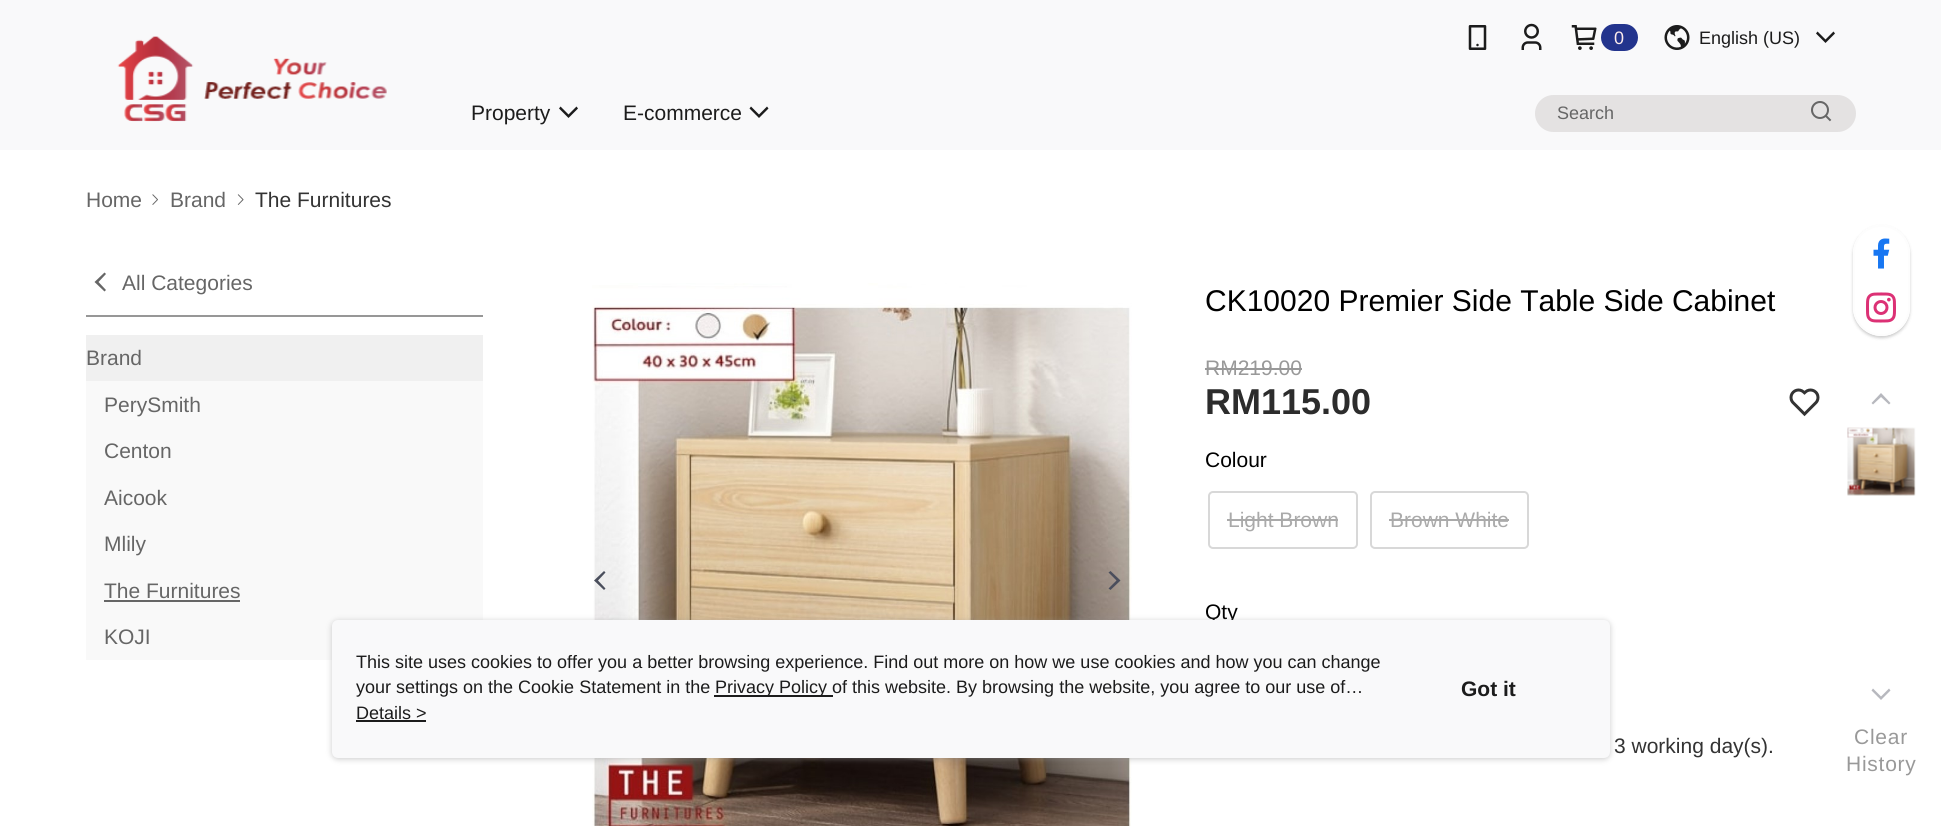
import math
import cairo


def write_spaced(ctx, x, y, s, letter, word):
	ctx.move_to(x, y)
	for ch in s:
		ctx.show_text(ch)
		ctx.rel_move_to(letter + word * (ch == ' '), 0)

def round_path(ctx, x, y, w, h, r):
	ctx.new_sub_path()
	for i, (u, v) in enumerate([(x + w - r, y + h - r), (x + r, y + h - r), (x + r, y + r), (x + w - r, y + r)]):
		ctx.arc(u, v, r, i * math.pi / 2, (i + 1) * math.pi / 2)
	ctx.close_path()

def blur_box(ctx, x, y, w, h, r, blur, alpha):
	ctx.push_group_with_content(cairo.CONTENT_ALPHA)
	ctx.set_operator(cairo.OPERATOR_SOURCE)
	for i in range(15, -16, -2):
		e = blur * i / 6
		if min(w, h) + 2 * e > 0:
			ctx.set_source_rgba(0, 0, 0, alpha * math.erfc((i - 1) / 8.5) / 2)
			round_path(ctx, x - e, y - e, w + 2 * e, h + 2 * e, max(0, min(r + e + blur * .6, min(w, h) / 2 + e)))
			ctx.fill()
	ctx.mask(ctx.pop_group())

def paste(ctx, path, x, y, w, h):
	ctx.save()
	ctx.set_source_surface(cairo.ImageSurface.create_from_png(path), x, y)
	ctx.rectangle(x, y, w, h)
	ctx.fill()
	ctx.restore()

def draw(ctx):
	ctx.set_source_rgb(1, 1, 1)
	ctx.paint()
	ctx.set_source_rgb(0.973, 0.976, 0.98)
	ctx.rectangle(0, 0, 1941, 150)
	ctx.fill()
	paste(ctx, 'media/1.png', 117, 36, 270, 86)
	paste(ctx, 'media/2.png', 1468, 25, 19, 25)
	paste(ctx, 'media/3.png', 1521, 23, 21, 27)
	paste(ctx, 'media/4.png', 1571, 25, 26, 25)
	ctx.set_source_rgb(0.137, 0.204, 0.553)
	round_path(ctx, 1601, 24, 37, 27, 13.5)
	ctx.fill()
	ctx.select_font_face('Liberation Sans')
	ctx.set_font_size(18)
	ctx.set_source_rgb(0.992, 0.925, 0.925)
	ctx.move_to(1614, 44)
	ctx.show_text('0')
	paste(ctx, 'media/5.png', 1664, 25, 26, 25)
	ctx.set_source_rgb(0.11, 0.11, 0.11)
	ctx.move_to(1699, 44)
	ctx.show_text('English (US)')
	ctx.new_path()
	ctx.move_to(1817.5, 31.5)
	ctx.line_to(1816, 33.5)
	ctx.line_to(1825.5, 43)
	ctx.line_to(1835, 33.5)
	ctx.line_to(1833.5, 31.5)
	ctx.line_to(1825.5, 39.5)
	ctx.close_path()
	ctx.fill()
	ctx.set_font_size(21)
	ctx.move_to(471, 120)
	ctx.show_text('Property')
	ctx.new_path()
	ctx.move_to(560.5, 106.5)
	ctx.line_to(559, 108.5)
	ctx.line_to(568.5, 118)
	ctx.line_to(578, 108.5)
	ctx.line_to(576.5, 106.5)
	ctx.line_to(568.5, 114.5)
	ctx.close_path()
	ctx.fill()
	ctx.move_to(623, 120)
	ctx.show_text('E-commerce')
	ctx.new_path()
	ctx.move_to(751, 106.5)
	ctx.line_to(749.5, 108.5)
	ctx.line_to(759, 118)
	ctx.line_to(768.5, 108.5)
	ctx.line_to(767, 106.5)
	ctx.line_to(759, 114.5)
	ctx.close_path()
	ctx.fill()
	ctx.set_source_rgb(0.894, 0.886, 0.886)
	round_path(ctx, 1535, 95, 321, 37, 18.5)
	ctx.fill()
	ctx.set_font_size(18)
	ctx.set_source_rgb(0.4, 0.4, 0.4)
	ctx.move_to(1557, 119)
	ctx.show_text('Search')
	paste(ctx, 'media/6.png', 1811, 101, 21, 21)
	ctx.set_font_size(21)
	ctx.move_to(86, 207)
	ctx.show_text('Home')
	paste(ctx, 'media/7.png', 152, 194, 6, 11)
	ctx.move_to(170, 207)
	ctx.show_text('Brand')
	paste(ctx, 'media/8.png', 237, 194, 7, 11)
	ctx.set_source_rgb(0.2, 0.2, 0.2)
	ctx.move_to(255, 207)
	ctx.show_text('The Furnitures')
	ctx.set_source_rgb(0.592, 0.592, 0.592)
	ctx.rectangle(86, 315, 397, 2)
	ctx.fill()
	ctx.set_source_rgb(0.4, 0.4, 0.4)
	ctx.new_path()
	ctx.move_to(106, 274)
	ctx.line_to(104.5, 272.5)
	ctx.line_to(94.5, 282)
	ctx.line_to(104.5, 291.5)
	ctx.line_to(106, 290)
	ctx.line_to(98.5, 282)
	ctx.close_path()
	ctx.fill()
	ctx.move_to(122, 290)
	ctx.show_text('All Categories')
	ctx.set_source_rgb(0.941, 0.941, 0.941)
	ctx.rectangle(86, 335, 397, 46)
	ctx.fill()
	ctx.set_source_rgb(0.4, 0.4, 0.4)
	ctx.move_to(86, 365)
	ctx.show_text('Brand')
	ctx.set_source_rgb(0.973, 0.973, 0.973)
	ctx.rectangle(86, 381, 397, 279)
	ctx.fill()
	ctx.set_source_rgb(0.4, 0.4, 0.4)
	for x, y, s in [
		(104, 412, 'PerySmith'),
		(104, 458, 'Centon'),
		(104, 505, 'Aicook'),
		(104, 551, 'Mlily'),
		(104, 598, 'The Furnitures'),
	]:
		ctx.move_to(x, y)
		ctx.show_text(s)
	ctx.rectangle(104, 600, 136, 2)
	ctx.fill()
	ctx.move_to(104, 644)
	ctx.show_text('KOJI')
	paste(ctx, 'media/9.png', 592, 283, 540, 543)
	ctx.set_source_rgb(0.29, 0.306, 0.361)
	ctx.new_path()
	ctx.move_to(605.5, 572.5)
	ctx.line_to(604, 571)
	ctx.line_to(594, 580.5)
	ctx.line_to(604, 590)
	ctx.line_to(605.5, 588.5)
	ctx.line_to(598, 580.5)
	ctx.close_path()
	ctx.fill()
	ctx.new_path()
	ctx.move_to(1108.5, 588.5)
	ctx.line_to(1110.5, 590)
	ctx.line_to(1120.5, 580.5)
	ctx.line_to(1110.5, 571)
	ctx.line_to(1108.5, 572.5)
	ctx.line_to(1116.5, 580.5)
	ctx.close_path()
	ctx.fill()
	ctx.set_font_size(30)
	ctx.set_source_rgb(0, 0, 0)
	ctx.move_to(1205, 311)
	ctx.show_text('CK10020 Premier Side Table Side Cabinet')
	ctx.set_font_size(21)
	ctx.set_source_rgb(0.6, 0.6, 0.6)
	ctx.move_to(1205, 375)
	ctx.show_text('RM219.00')
	ctx.rectangle(1205, 368, 97, 2)
	ctx.fill()
	ctx.select_font_face('Liberation Sans', cairo.FONT_SLANT_NORMAL, cairo.FONT_WEIGHT_BOLD)
	ctx.set_font_size(36)
	ctx.set_source_rgb(0.173, 0.173, 0.173)
	ctx.move_to(1205, 414)
	ctx.show_text('RM115.00')
	paste(ctx, 'media/10.png', 1789, 388, 31, 29)
	ctx.select_font_face('Liberation Sans')
	ctx.set_font_size(21)
	ctx.set_source_rgb(0, 0, 0)
	ctx.move_to(1205, 467)
	ctx.show_text('Colour')
	round_path(ctx, 1209, 492, 148, 56, 4)
	ctx.set_source_rgb(0.847, 0.847, 0.847)
	ctx.stroke()
	ctx.set_source_rgb(0.667, 0.667, 0.667)
	ctx.move_to(1228, 527)
	ctx.show_text('Light Brown')
	ctx.rectangle(1227, 519, 111, 2)
	ctx.fill()
	round_path(ctx, 1371, 492, 157, 56, 4)
	ctx.set_source_rgb(0.847, 0.847, 0.847)
	ctx.stroke()
	ctx.set_source_rgb(0.667, 0.667, 0.667)
	ctx.move_to(1390, 527)
	ctx.show_text('Brown White')
	ctx.rectangle(1389, 519, 120, 2)
	ctx.fill()
	ctx.set_source_rgb(0, 0, 0)
	ctx.move_to(1205, 619)
	ctx.show_text('Qty')
	ctx.set_source_rgb(0.2, 0.2, 0.2)
	ctx.move_to(1614, 753)
	ctx.show_text('3 working day(s).')
	ctx.save()
	ctx.set_fill_rule(cairo.FILL_RULE_EVEN_ODD)
	ctx.new_path()
	ctx.move_to(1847, 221)
	ctx.line_to(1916, 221)
	ctx.line_to(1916, 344)
	ctx.line_to(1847, 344)
	ctx.close_path()
	ctx.move_to(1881.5, 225)
	ctx.curve_to(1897, 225, 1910, 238, 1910, 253.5)
	ctx.line_to(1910, 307.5)
	ctx.curve_to(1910, 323, 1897, 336, 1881.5, 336)
	ctx.curve_to(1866, 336, 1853, 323, 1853, 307.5)
	ctx.line_to(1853, 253.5)
	ctx.curve_to(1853, 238, 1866, 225, 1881.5, 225)
	ctx.close_path()
	ctx.clip()
	ctx.set_source_rgb(0, 0, 0)
	blur_box(ctx, 1853, 227, 57, 111, 28.5, 1.5, 0.2)
	ctx.restore()
	ctx.set_source_rgba(1, 1, 1, 0.9)
	round_path(ctx, 1854, 226, 55, 109, 27.5)
	ctx.fill_preserve()
	ctx.set_source_rgb(0.992, 0.992, 0.992)
	ctx.stroke()
	paste(ctx, 'media/11.png', 1873, 238, 17, 31)
	paste(ctx, 'media/12.png', 1866, 292, 30, 31)
	ctx.set_source_rgb(0.718, 0.722, 0.745)
	ctx.new_path()
	ctx.move_to(1889, 404.5)
	ctx.line_to(1890.5, 403)
	ctx.line_to(1881, 393)
	ctx.line_to(1871.5, 403)
	ctx.line_to(1873, 404.5)
	ctx.line_to(1881, 397)
	ctx.close_path()
	ctx.fill()
	paste(ctx, 'media/13.png', 1847, 427, 69, 69)
	ctx.new_path()
	ctx.move_to(1873, 688.5)
	ctx.line_to(1871.5, 690.5)
	ctx.line_to(1881, 700)
	ctx.line_to(1890.5, 690.5)
	ctx.line_to(1889, 688.5)
	ctx.line_to(1881, 696.5)
	ctx.close_path()
	ctx.fill()
	ctx.set_source_rgb(0.6, 0.6, 0.6)
	write_spaced(ctx, 1854, 744, 'Clear', 0.75, 0)
	write_spaced(ctx, 1846, 771, 'History', 0.75, 0)
	ctx.set_source_rgb(0.592, 0.592, 0.592)
	blur_box(ctx, 332, 621, 1278, 138, 6, 3, 0.5)
	ctx.set_source_rgb(0.973, 0.976, 0.98)
	round_path(ctx, 332, 620, 1278, 138, 6)
	ctx.fill()
	ctx.set_font_size(18)
	ctx.set_source_rgb(0.11, 0.11, 0.11)
	ctx.move_to(356, 668)
	ctx.show_text('This site uses cookies to offer you a better browsing experience. Find out more on how we use cookies and how you can change')
	ctx.move_to(356, 693)
	ctx.show_text('your settings on the Cookie Statement in the')
	ctx.rectangle(714, 695, 119, 2)
	ctx.fill()
	ctx.move_to(715, 693)
	ctx.show_text('Privacy Policy of this website. By browsing the website, you agree to our use of…')
	ctx.move_to(356, 719)
	ctx.show_text('Details >')
	ctx.rectangle(356, 720, 70, 2)
	ctx.fill()
	ctx.select_font_face('Liberation Sans', cairo.FONT_SLANT_NORMAL, cairo.FONT_WEIGHT_BOLD)
	ctx.set_font_size(21)
	ctx.move_to(1461, 696)
	ctx.show_text('Got it')


surface = cairo.ImageSurface(cairo.FORMAT_RGB24, 1941, 826)
ctx = cairo.Context(surface)
options = cairo.FontOptions()
options.set_hint_metrics(cairo.HINT_METRICS_OFF)
options.set_hint_style(cairo.HINT_STYLE_NONE)
ctx.set_font_options(options)
ctx.set_miter_limit(4)
draw(ctx)
surface.write_to_png('image.png')
